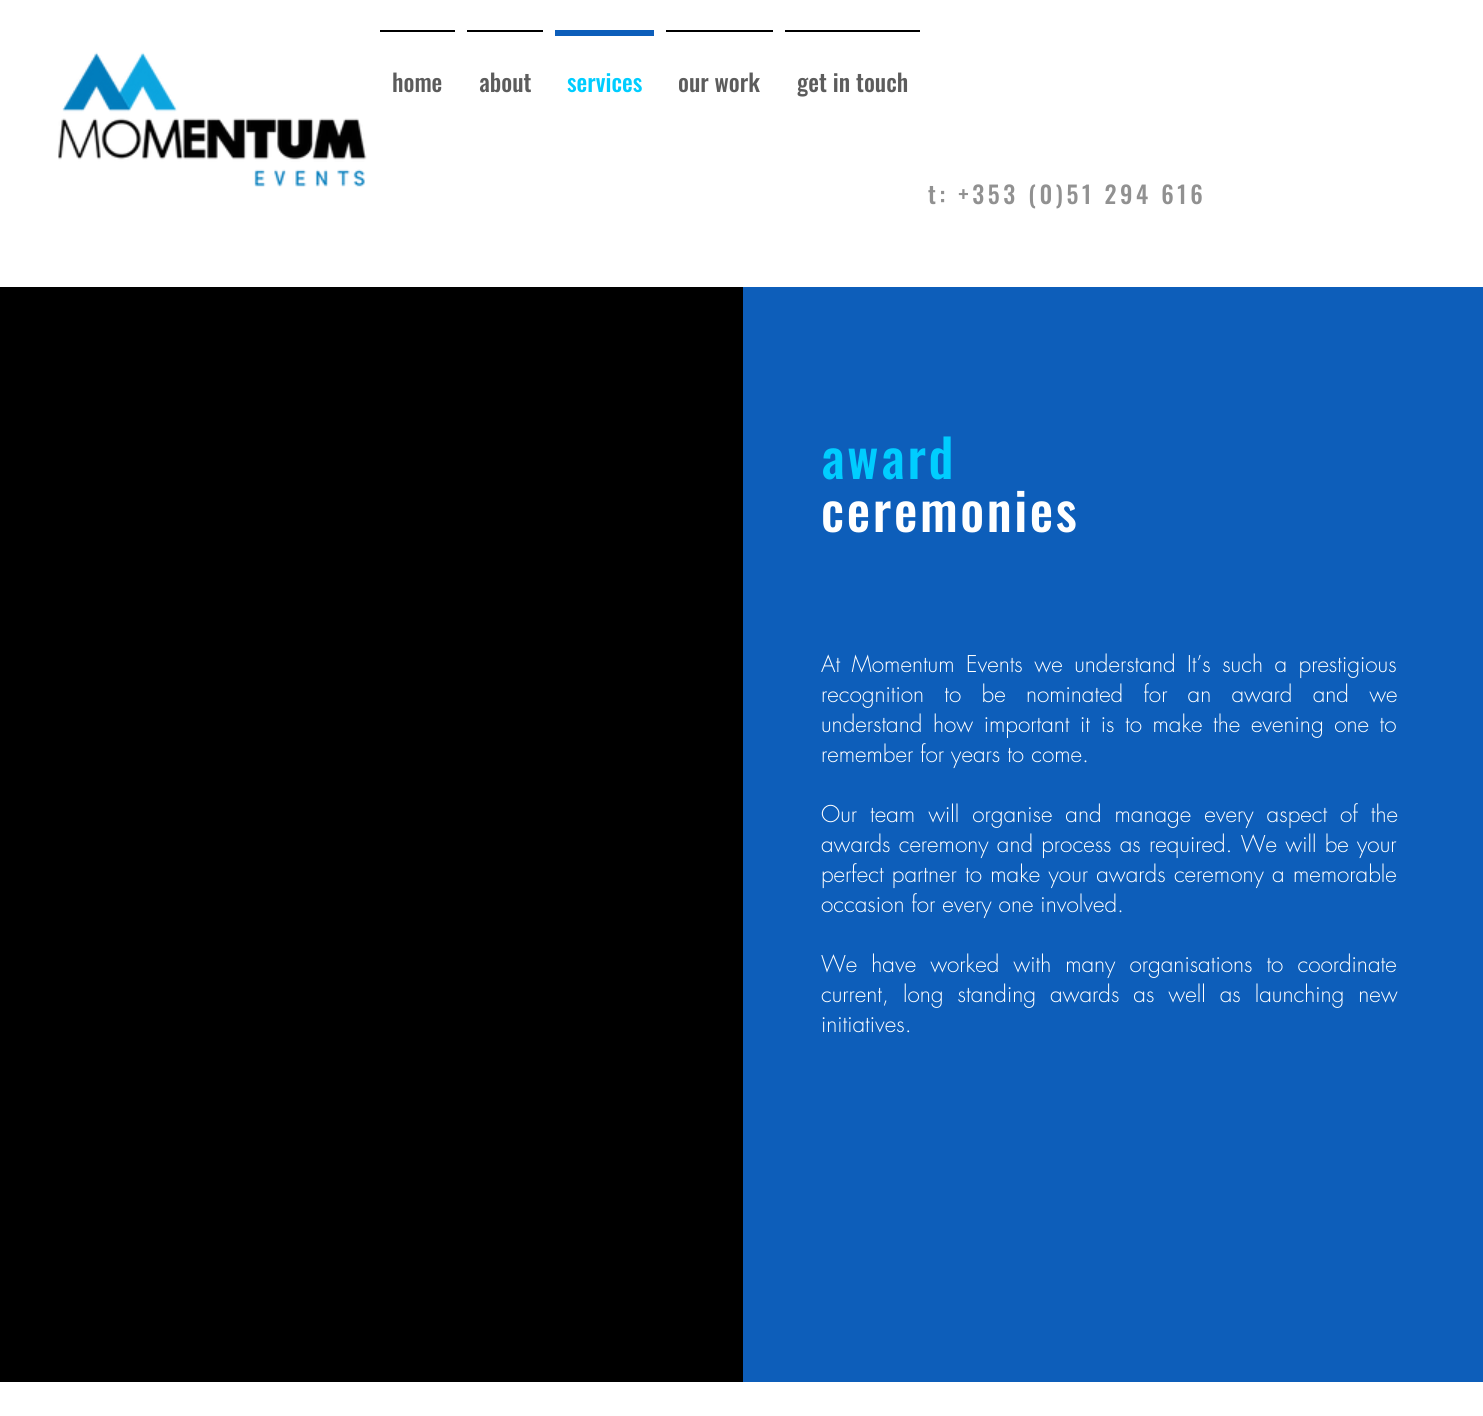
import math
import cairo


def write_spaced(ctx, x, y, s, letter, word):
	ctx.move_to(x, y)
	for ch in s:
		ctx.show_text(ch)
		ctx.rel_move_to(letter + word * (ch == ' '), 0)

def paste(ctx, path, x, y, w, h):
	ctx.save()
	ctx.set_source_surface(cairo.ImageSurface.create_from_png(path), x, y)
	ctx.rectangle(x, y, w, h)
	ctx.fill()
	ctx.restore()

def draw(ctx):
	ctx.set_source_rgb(1, 1, 1)
	ctx.paint()
	ctx.set_source_rgb(0, 0, 0)
	ctx.rectangle(380, 30, 75, 2)
	ctx.fill()
	ctx.select_font_face('Oswald Medium')
	ctx.set_font_size(24)
	ctx.set_source_rgb(0.361, 0.361, 0.361)
	ctx.move_to(392, 92)
	ctx.show_text('home')
	ctx.set_source_rgb(0, 0, 0)
	ctx.rectangle(467, 30, 76, 2)
	ctx.fill()
	ctx.set_source_rgb(0.361, 0.361, 0.361)
	ctx.move_to(479, 92)
	ctx.show_text('about')
	ctx.set_source_rgb(0.051, 0.369, 0.729)
	ctx.rectangle(555, 30, 99, 6)
	ctx.fill()
	ctx.set_source_rgb(0, 0.804, 1)
	ctx.move_to(567, 92)
	ctx.show_text('services')
	ctx.set_source_rgb(0, 0, 0)
	ctx.rectangle(666, 30, 107, 2)
	ctx.fill()
	ctx.set_source_rgb(0.361, 0.361, 0.361)
	ctx.move_to(678, 92)
	ctx.show_text('our work')
	ctx.set_source_rgb(0, 0, 0)
	ctx.rectangle(785, 30, 135, 2)
	ctx.fill()
	ctx.set_source_rgb(0.361, 0.361, 0.361)
	ctx.move_to(797, 92)
	ctx.show_text('get in touch')
	paste(ctx, 'media/1.png', 58, 52, 309, 135)
	ctx.set_source_rgb(0.569, 0.569, 0.569)
	write_spaced(ctx, 928, 204, 't: +353 (0)51 294 616', 3.6, 0)
	ctx.set_source_rgb(0, 0, 0)
	ctx.rectangle(0, 287, 743, 1095)
	ctx.fill()
	ctx.set_source_rgb(0.051, 0.369, 0.729)
	ctx.rectangle(743, 287, 740, 1095)
	ctx.fill()
	ctx.set_font_size(52.5)
	ctx.set_source_rgb(0, 0.804, 1)
	write_spaced(ctx, 821, 479, 'award', 2.6, 0)
	ctx.set_source_rgb(1, 1, 1)
	write_spaced(ctx, 821, 532, 'ceremonies', 2.6, 0)
	ctx.select_font_face('futura Light')
	ctx.set_font_size(22.5)
	write_spaced(ctx, 821, 672, 'At Momentum Events we understand It’s such a prestigious', 0, 4.5)
	write_spaced(ctx, 821, 702, 'recognition to be nominated for an award and we', 0, 13.25)
	write_spaced(ctx, 821, 732, 'understand how important it is to make the evening one to', 0, 3.6)
	ctx.move_to(821, 762)
	ctx.show_text('remember for years to come.')
	write_spaced(ctx, 821, 822, 'Our team will organise and manage every aspect of the', 0, 6)
	write_spaced(ctx, 821, 852, 'awards ceremony and process as required. We will be your', 0, 1.25)
	write_spaced(ctx, 821, 882, 'perfect partner to make your awards ceremony a memorable', 0, 1.25)
	ctx.move_to(821, 912)
	ctx.show_text('occasion for every one involved.')
	write_spaced(ctx, 821, 972, 'We have worked with many organisations to coordinate', 0, 7)
	write_spaced(ctx, 821, 1002, 'current, long standing awards as well as launching new', 0, 7)
	ctx.move_to(821, 1032)
	ctx.show_text('initiatives.')


surface = cairo.ImageSurface(cairo.FORMAT_RGB24, 1483, 1416)
ctx = cairo.Context(surface)
options = cairo.FontOptions()
options.set_hint_metrics(cairo.HINT_METRICS_OFF)
options.set_hint_style(cairo.HINT_STYLE_NONE)
ctx.set_font_options(options)
ctx.set_miter_limit(4)
draw(ctx)
surface.write_to_png('image.png')
